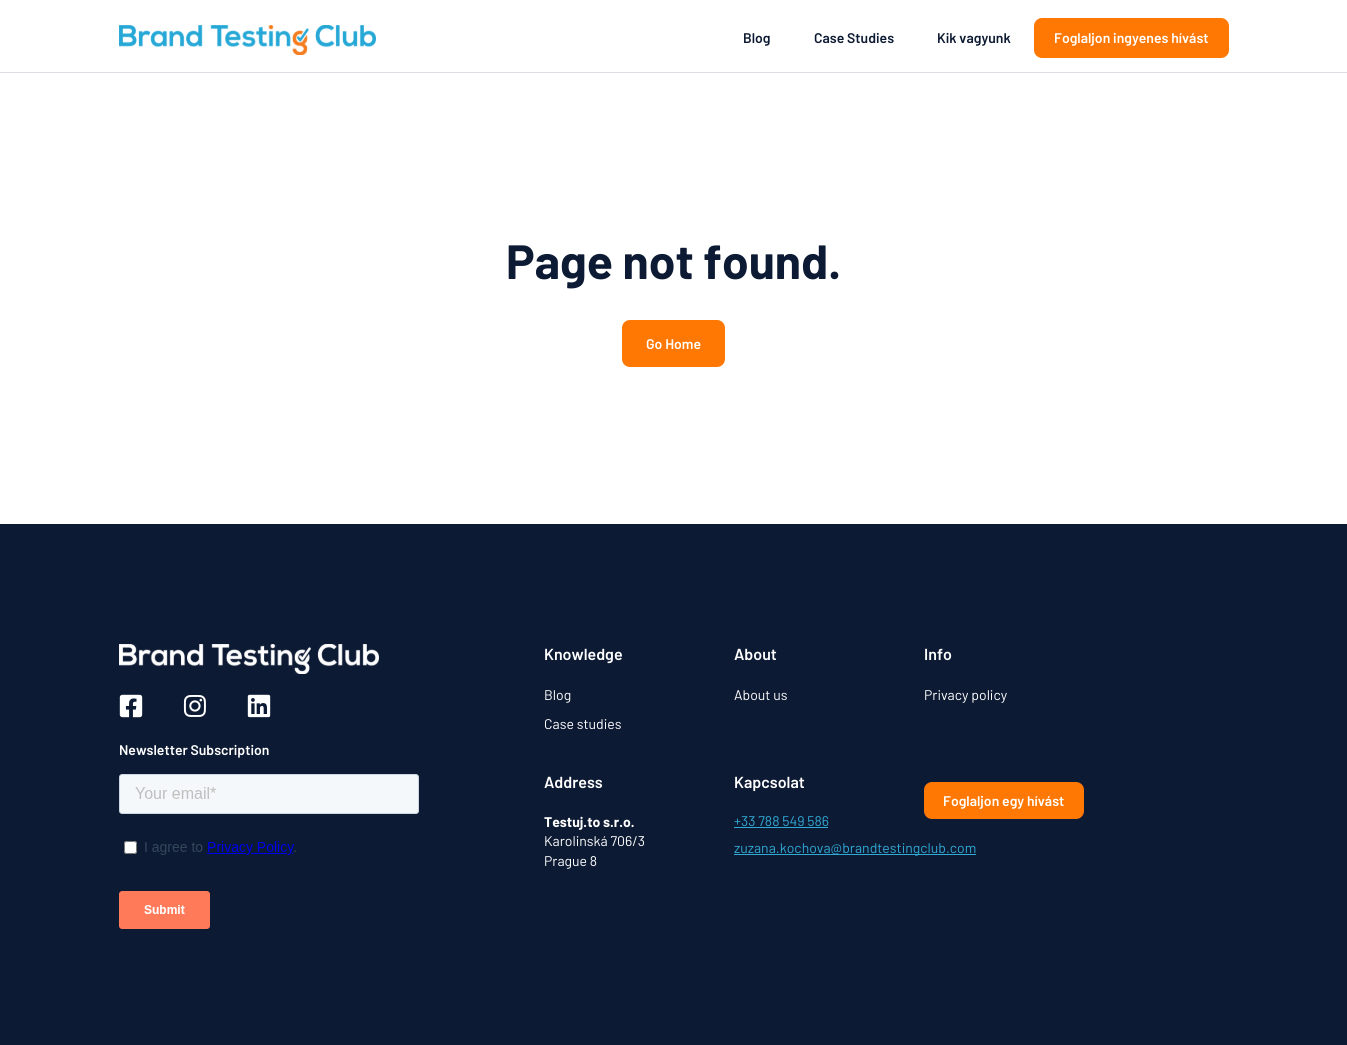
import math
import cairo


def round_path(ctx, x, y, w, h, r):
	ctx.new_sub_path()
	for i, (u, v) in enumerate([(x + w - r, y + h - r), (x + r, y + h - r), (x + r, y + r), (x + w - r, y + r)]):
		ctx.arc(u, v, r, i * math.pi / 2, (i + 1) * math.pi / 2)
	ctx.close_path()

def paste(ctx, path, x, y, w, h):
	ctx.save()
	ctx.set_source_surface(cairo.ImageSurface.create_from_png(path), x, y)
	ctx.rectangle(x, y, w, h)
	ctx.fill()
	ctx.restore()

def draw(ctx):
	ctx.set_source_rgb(1, 1, 1)
	ctx.paint()
	ctx.set_source_rgb(0.855, 0.871, 0.886)
	ctx.rectangle(0, 72, 1347, 1)
	ctx.fill()
	paste(ctx, 'media/1.png', 119, 25, 257, 30)
	ctx.select_font_face('Barlow SemiBold')
	ctx.set_font_size(14)
	ctx.set_source_rgb(0.051, 0.102, 0.2)
	for x, y, s in [
		(743, 43, 'Blog'),
		(814, 43, 'Case Studies'),
		(937, 43, 'Kik vagyunk'),
	]:
		ctx.move_to(x, y)
		ctx.show_text(s)
	ctx.set_source_rgb(1, 0.471, 0.016)
	round_path(ctx, 1034, 18, 195, 40, 8)
	ctx.fill()
	ctx.set_source_rgb(1, 1, 1)
	ctx.move_to(1054, 43)
	ctx.show_text('Foglaljon ingyenes hívást')
	ctx.select_font_face('Barlow', cairo.FONT_SLANT_NORMAL, cairo.FONT_WEIGHT_BOLD)
	ctx.set_font_size(48)
	ctx.set_source_rgb(0.051, 0.102, 0.2)
	ctx.move_to(506, 279)
	ctx.show_text('Page not found.')
	ctx.set_source_rgb(1, 0.471, 0.016)
	round_path(ctx, 622, 320, 103, 47, 8)
	ctx.fill()
	ctx.select_font_face('Barlow SemiBold')
	ctx.set_font_size(14)
	ctx.set_source_rgb(1, 1, 1)
	ctx.move_to(646, 349)
	ctx.show_text('Go Home')
	ctx.set_source_rgb(0.051, 0.102, 0.2)
	ctx.rectangle(0, 524, 1347, 521)
	ctx.fill()
	paste(ctx, 'media/2.png', 119, 644, 260, 30)
	paste(ctx, 'media/3.png', 119, 694, 24, 24)
	paste(ctx, 'media/4.png', 183, 695, 23, 22)
	paste(ctx, 'media/5.png', 247, 694, 24, 24)
	ctx.set_source_rgb(1, 1, 1)
	ctx.move_to(119, 755)
	ctx.show_text('Newsletter Subscription')
	paste(ctx, 'media/6.png', 119, 774, 300, 155)
	ctx.set_font_size(16)
	ctx.move_to(544, 660)
	ctx.show_text('Knowledge')
	ctx.select_font_face('Barlow')
	ctx.set_font_size(14)
	ctx.move_to(544, 700)
	ctx.show_text('Blog')
	ctx.move_to(544, 729)
	ctx.show_text('Case studies')
	ctx.select_font_face('Barlow SemiBold')
	ctx.set_font_size(16)
	ctx.move_to(734, 660)
	ctx.show_text('About')
	ctx.select_font_face('Barlow')
	ctx.set_font_size(14)
	ctx.move_to(734, 700)
	ctx.show_text('About us')
	ctx.select_font_face('Barlow SemiBold')
	ctx.set_font_size(16)
	ctx.move_to(924, 660)
	ctx.show_text('Info')
	ctx.select_font_face('Barlow')
	ctx.set_font_size(14)
	ctx.move_to(924, 700)
	ctx.show_text('Privacy policy')
	ctx.select_font_face('Barlow SemiBold')
	ctx.set_font_size(16)
	ctx.move_to(544, 788)
	ctx.show_text('Address')
	ctx.select_font_face('Barlow', cairo.FONT_SLANT_NORMAL, cairo.FONT_WEIGHT_BOLD)
	ctx.set_font_size(14)
	ctx.move_to(544, 827)
	ctx.show_text('Testuj.to s.r.o.')
	ctx.select_font_face('Barlow')
	ctx.move_to(544, 846)
	ctx.show_text('Karolinská 706/3')
	ctx.move_to(544, 866)
	ctx.show_text('Prague 8')
	ctx.select_font_face('Barlow SemiBold')
	ctx.set_font_size(16)
	ctx.move_to(734, 788)
	ctx.show_text('Kapcsolat')
	ctx.select_font_face('Barlow')
	ctx.set_font_size(14)
	ctx.set_source_rgb(0.188, 0.663, 0.831)
	ctx.move_to(734, 826)
	ctx.show_text('+33 788 549 586')
	ctx.rectangle(734, 827, 94, 1)
	ctx.fill()
	ctx.rectangle(734, 854, 242, 1)
	ctx.fill()
	ctx.move_to(734, 853)
	ctx.show_text('zuzana.kochova@brandtestingclub.com')
	ctx.set_source_rgb(1, 0.471, 0.016)
	round_path(ctx, 924, 782, 160, 37, 8)
	ctx.fill()
	ctx.select_font_face('Barlow SemiBold')
	ctx.set_source_rgb(1, 1, 1)
	ctx.move_to(943, 806)
	ctx.show_text('Foglaljon egy hívást')


surface = cairo.ImageSurface(cairo.FORMAT_RGB24, 1347, 1045)
ctx = cairo.Context(surface)
options = cairo.FontOptions()
options.set_hint_metrics(cairo.HINT_METRICS_OFF)
options.set_hint_style(cairo.HINT_STYLE_NONE)
ctx.set_font_options(options)
ctx.set_miter_limit(4)
draw(ctx)
surface.write_to_png('image.png')
